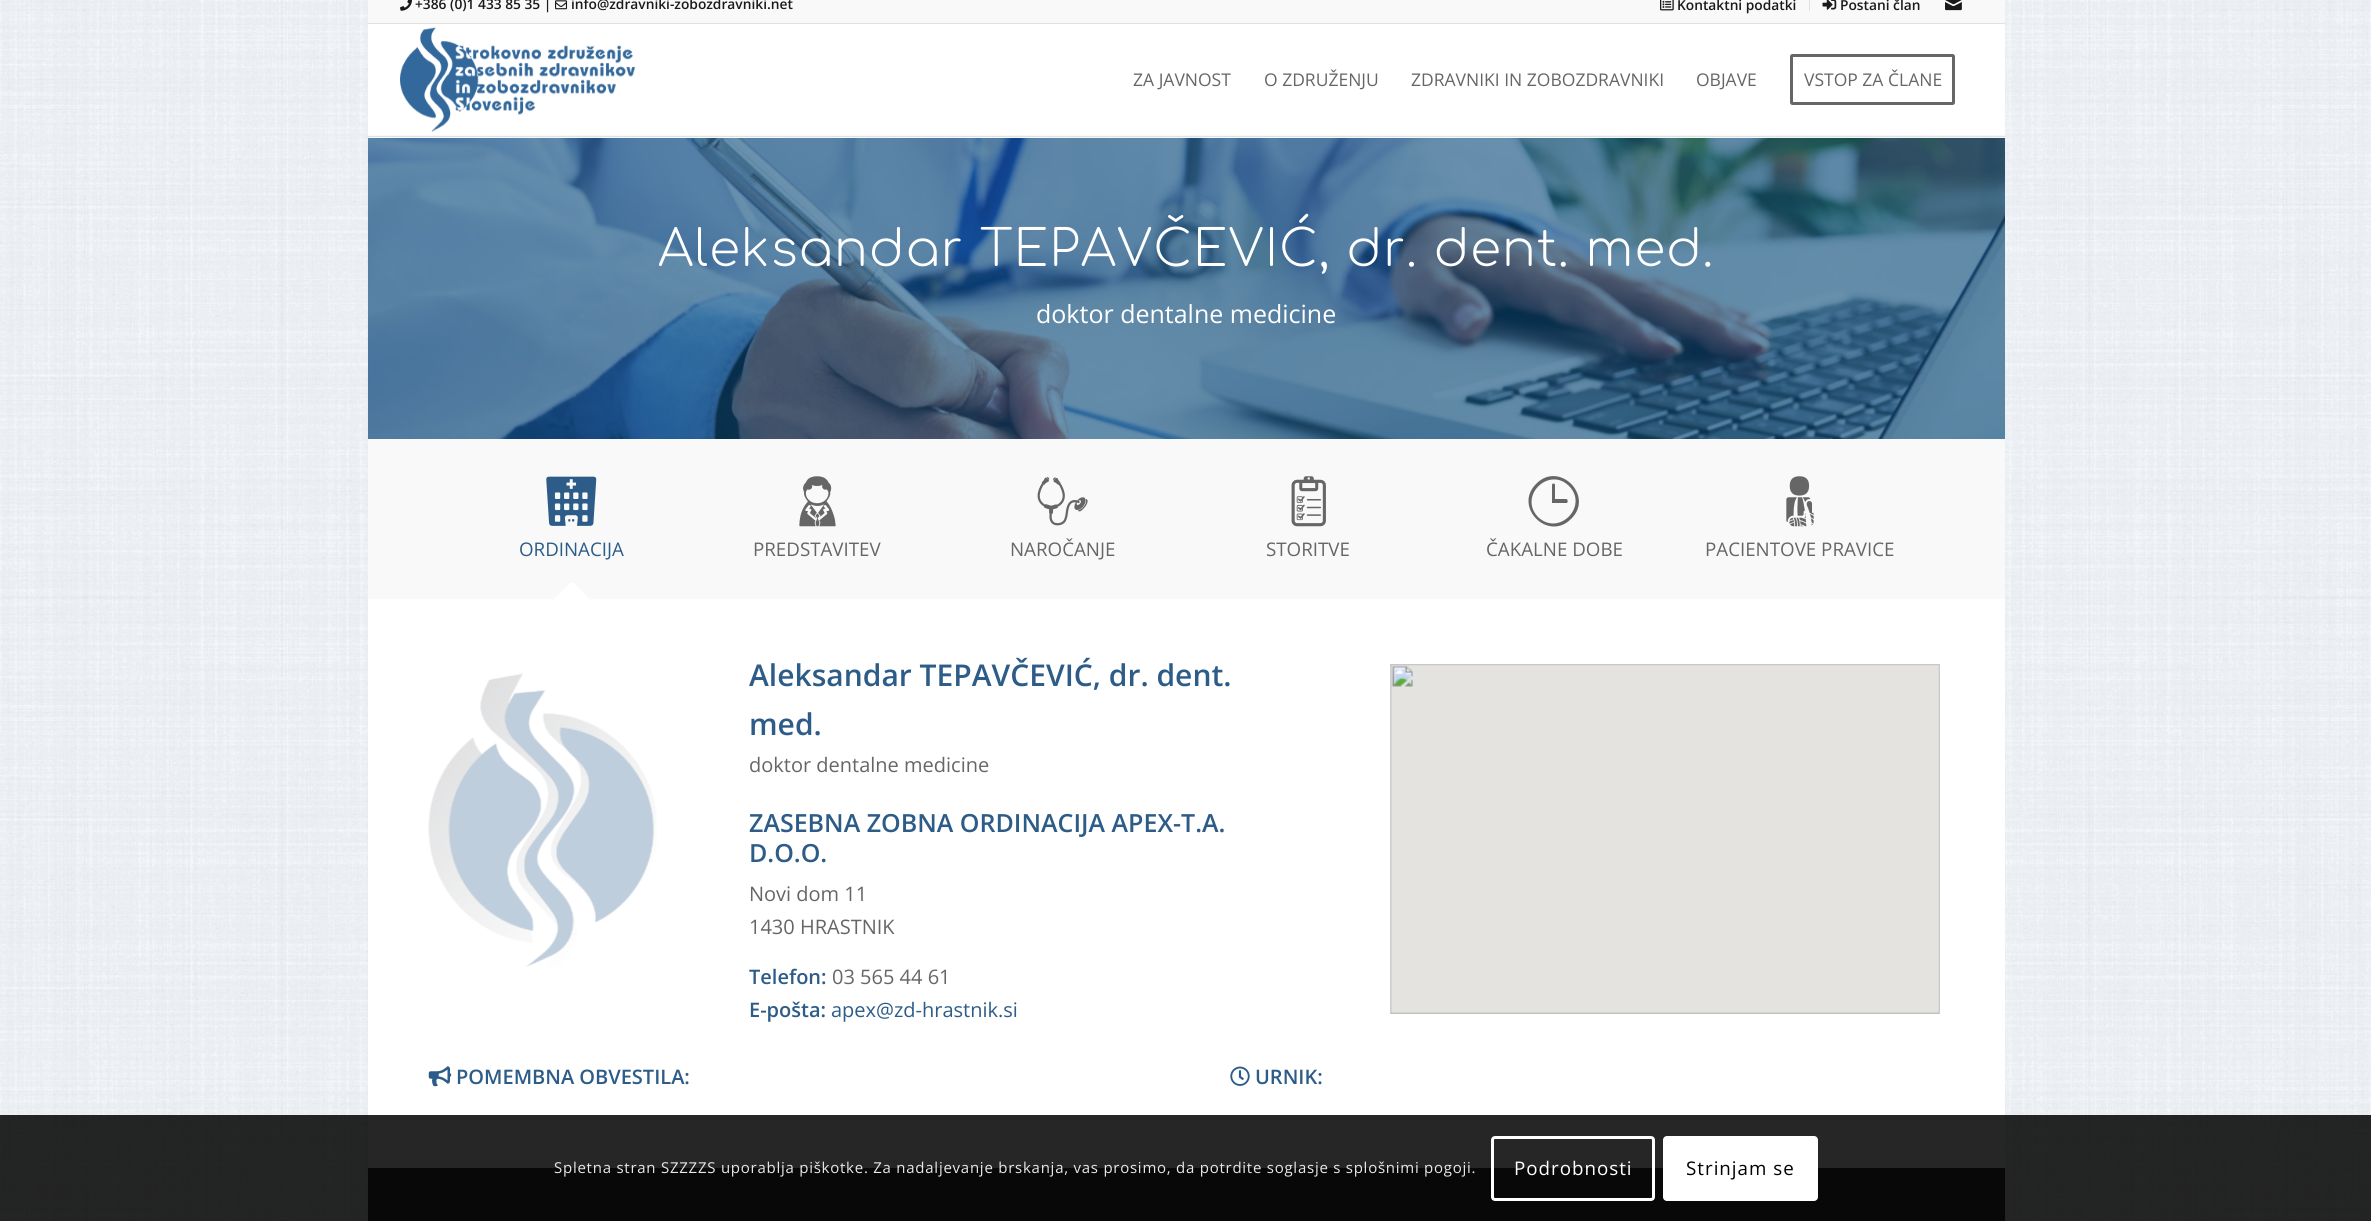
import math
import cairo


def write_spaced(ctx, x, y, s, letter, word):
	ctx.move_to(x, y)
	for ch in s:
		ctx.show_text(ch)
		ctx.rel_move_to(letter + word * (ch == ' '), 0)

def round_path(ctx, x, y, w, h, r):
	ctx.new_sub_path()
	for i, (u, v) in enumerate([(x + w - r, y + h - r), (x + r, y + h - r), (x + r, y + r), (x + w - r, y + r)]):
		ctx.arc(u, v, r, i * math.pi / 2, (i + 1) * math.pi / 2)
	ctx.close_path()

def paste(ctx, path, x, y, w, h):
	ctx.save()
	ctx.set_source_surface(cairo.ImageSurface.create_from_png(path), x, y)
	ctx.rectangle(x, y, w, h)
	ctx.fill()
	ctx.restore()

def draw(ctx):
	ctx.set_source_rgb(0.965, 0.984, 1)
	ctx.paint()
	paste(ctx, 'media/1.png', 0, 0, 2371, 1221)
	ctx.set_source_rgb(0.973, 0.973, 0.973)
	ctx.rectangle(368, 0, 1637, 23)
	ctx.fill()
	ctx.set_source_rgb(0.882, 0.882, 0.882)
	ctx.rectangle(368, 23, 1637, 1)
	ctx.fill()
	paste(ctx, 'media/2.png', 400, 0, 12, 11)
	ctx.select_font_face('Open Sans SemiBold')
	ctx.set_font_size(13.75)
	ctx.set_source_rgb(0.102, 0.102, 0.102)
	ctx.move_to(415, 9)
	ctx.show_text('+386 (0)1 433 85 35 |')
	paste(ctx, 'media/3.png', 555, 0, 13, 10)
	ctx.move_to(571, 9)
	ctx.show_text('info@zdravniki-zobozdravniki.net')
	ctx.set_source_rgb(0.882, 0.882, 0.882)
	ctx.rectangle(1809, 0, 1, 11)
	ctx.fill()
	paste(ctx, 'media/4.png', 1660, 0, 14, 11)
	ctx.set_source_rgb(0.102, 0.102, 0.102)
	ctx.move_to(1677, 10)
	ctx.show_text('Kontaktni podatki')
	paste(ctx, 'media/5.png', 1822, 0, 15, 10)
	ctx.move_to(1840, 10)
	ctx.show_text('Postani član')
	paste(ctx, 'media/6.png', 1945, 0, 17, 11)
	ctx.set_source_rgb(1, 1, 1)
	ctx.rectangle(368, 24, 1637, 1144)
	ctx.fill()
	paste(ctx, 'media/8.png', 368, 135, 1637, 304)
	ctx.set_source_rgba(1, 1, 1, 0.95)
	ctx.rectangle(368, 135, 1637, 3)
	ctx.fill()
	ctx.set_source_rgb(0.882, 0.882, 0.882)
	ctx.rectangle(368, 136, 1637, 1)
	ctx.fill()
	paste(ctx, 'media/7.png', 400, 27, 235, 105)
	ctx.select_font_face('Open Sans')
	ctx.set_font_size(17.5)
	ctx.set_source_rgb(0.4, 0.4, 0.4)
	for x, y, s in [
		(1133, 86, 'ZA JAVNOST'),
		(1264, 86, 'O ZDRUŽENJU'),
		(1411, 86, 'ZDRAVNIKI IN ZOBOZDRAVNIKI'),
		(1696, 86, 'OBJAVE'),
	]:
		ctx.move_to(x, y)
		ctx.show_text(s)
	round_path(ctx, 1791.5, 55.5, 162, 48, 1)
	ctx.set_line_width(3)
	ctx.stroke()
	ctx.move_to(1804, 86)
	ctx.show_text('VSTOP ZA ČLANE')
	ctx.select_font_face('Comfortaa Light')
	ctx.set_font_size(50)
	ctx.set_source_rgb(1, 1, 1)
	write_spaced(ctx, 658, 266, 'Aleksandar TEPAVČEVIĆ, dr. dent. med.', 1.25, 0)
	ctx.select_font_face('Open Sans')
	ctx.set_font_size(25)
	ctx.move_to(1036, 323)
	ctx.show_text('doktor dentalne medicine')
	ctx.set_source_rgb(0.976, 0.976, 0.976)
	ctx.rectangle(368, 439, 1637, 160)
	ctx.fill()
	paste(ctx, 'media/9.png', 546, 476, 51, 50)
	ctx.set_font_size(18.75)
	ctx.set_source_rgb(0.176, 0.361, 0.533)
	ctx.move_to(519, 556)
	ctx.show_text('ORDINACIJA')
	ctx.save()
	ctx.rectangle(474, 583, 196, 18)
	ctx.clip()
	ctx.set_source_rgb(1, 1, 1)
	ctx.new_path()
	ctx.move_to(572, 581)
	ctx.line_to(616, 626)
	ctx.line_to(572, 670)
	ctx.line_to(527, 626)
	ctx.close_path()
	ctx.fill()
	ctx.restore()
	paste(ctx, 'media/10.png', 799, 476, 37, 51)
	ctx.set_source_rgb(0.4, 0.4, 0.4)
	ctx.move_to(753, 556)
	ctx.show_text('PREDSTAVITEV')
	paste(ctx, 'media/11.png', 1037, 477, 51, 49)
	ctx.move_to(1010, 556)
	ctx.show_text('NAROČANJE')
	paste(ctx, 'media/12.png', 1291, 476, 35, 51)
	ctx.move_to(1266, 556)
	ctx.show_text('STORITVE')
	ctx.new_path()
	ctx.move_to(1536, 484)
	ctx.curve_to(1559, 460, 1595, 496, 1571, 519)
	ctx.curve_to(1548, 542, 1513, 507, 1536, 484)
	ctx.close_path()
	ctx.move_to(1538, 517)
	ctx.curve_to(1559, 537, 1589, 506, 1569, 486)
	ctx.curve_to(1549, 466, 1518, 496, 1538, 517)
	ctx.close_path()
	ctx.move_to(1566, 499)
	ctx.curve_to(1568, 499, 1568, 502, 1567, 503)
	ctx.line_to(1552, 503)
	ctx.line_to(1552, 485)
	ctx.curve_to(1552, 483, 1555, 483, 1555, 485)
	ctx.line_to(1555, 499)
	ctx.close_path()
	ctx.fill()
	ctx.move_to(1486, 556)
	ctx.show_text('ČAKALNE DOBE')
	paste(ctx, 'media/13.png', 1786, 476, 28, 51)
	ctx.move_to(1705, 556)
	ctx.show_text('PACIENTOVE PRAVICE')
	paste(ctx, 'media/14.png', 428, 673, 229, 294)
	ctx.select_font_face('Open Sans SemiBold')
	ctx.set_font_size(30)
	ctx.set_source_rgb(0.176, 0.361, 0.533)
	ctx.move_to(749, 686)
	ctx.show_text('Aleksandar TEPAVČEVIĆ, dr. dent.')
	ctx.move_to(749, 735)
	ctx.show_text('med.')
	ctx.select_font_face('Open Sans')
	ctx.set_font_size(20)
	ctx.set_source_rgb(0.4, 0.4, 0.4)
	ctx.move_to(749, 772)
	ctx.show_text('doktor dentalne medicine')
	ctx.select_font_face('Open Sans SemiBold')
	ctx.set_font_size(25)
	ctx.set_source_rgb(0.176, 0.361, 0.533)
	ctx.move_to(749, 832)
	ctx.show_text('ZASEBNA ZOBNA ORDINACIJA APEX-T.A.')
	ctx.move_to(749, 862)
	ctx.show_text('D.O.O.')
	ctx.select_font_face('Open Sans')
	ctx.set_font_size(20)
	ctx.set_source_rgb(0.4, 0.4, 0.4)
	ctx.move_to(749, 901)
	ctx.show_text('Novi dom 11')
	ctx.move_to(749, 934)
	ctx.show_text('1430 HRASTNIK')
	ctx.select_font_face('Open Sans SemiBold')
	ctx.set_source_rgb(0.176, 0.361, 0.533)
	ctx.move_to(749, 984)
	ctx.show_text('Telefon:')
	ctx.select_font_face('Open Sans')
	ctx.set_source_rgb(0.4, 0.4, 0.4)
	ctx.move_to(832, 984)
	ctx.show_text('03 565 44 61')
	ctx.select_font_face('Open Sans SemiBold')
	ctx.set_source_rgb(0.176, 0.361, 0.533)
	ctx.move_to(749, 1017)
	ctx.show_text('E-pošta:')
	ctx.select_font_face('Open Sans')
	ctx.move_to(831, 1017)
	ctx.show_text('apex@zd-hrastnik.si')
	paste(ctx, 'media/15.png', 1390, 664, 550, 350)
	paste(ctx, 'media/16.png', 428, 1066, 24, 21)
	ctx.select_font_face('Open Sans SemiBold')
	ctx.move_to(456, 1084)
	ctx.show_text('POMEMBNA OBVESTILA:')
	paste(ctx, 'media/17.png', 1230, 1066, 20, 20)
	ctx.move_to(1255, 1084)
	ctx.show_text('URNIK:')
	ctx.set_source_rgb(0.2, 0.2, 0.2)
	ctx.rectangle(368, 1168, 1637, 53)
	ctx.fill()
	ctx.set_source_rgba(0, 0, 0, 0.85)
	ctx.rectangle(0, 1115, 2371, 106)
	ctx.fill()
	ctx.select_font_face('Open Sans')
	ctx.set_font_size(15)
	ctx.set_source_rgb(0.91, 0.91, 0.91)
	write_spaced(ctx, 554, 1173, 'Spletna stran SZZZZS uporablja piškotke. Za nadaljevanje brskanja, vas prosimo, da potrdite soglasje s splošnimi pogoji.', 0.75, 0)
	round_path(ctx, 1492.5, 1137.5, 161, 62, 2.5)
	ctx.set_source_rgb(1, 1, 1)
	ctx.stroke()
	ctx.set_font_size(18.75)
	write_spaced(ctx, 1514, 1175, 'Podrobnosti', 1, 0)
	round_path(ctx, 1663, 1136, 155, 65, 4)
	ctx.fill()
	ctx.set_source_rgb(0, 0, 0)
	write_spaced(ctx, 1686, 1175, 'Strinjam se', 1, 0)


surface = cairo.ImageSurface(cairo.FORMAT_RGB24, 2371, 1221)
ctx = cairo.Context(surface)
options = cairo.FontOptions()
options.set_hint_metrics(cairo.HINT_METRICS_OFF)
options.set_hint_style(cairo.HINT_STYLE_NONE)
ctx.set_font_options(options)
ctx.set_miter_limit(4)
draw(ctx)
surface.write_to_png('image.png')
